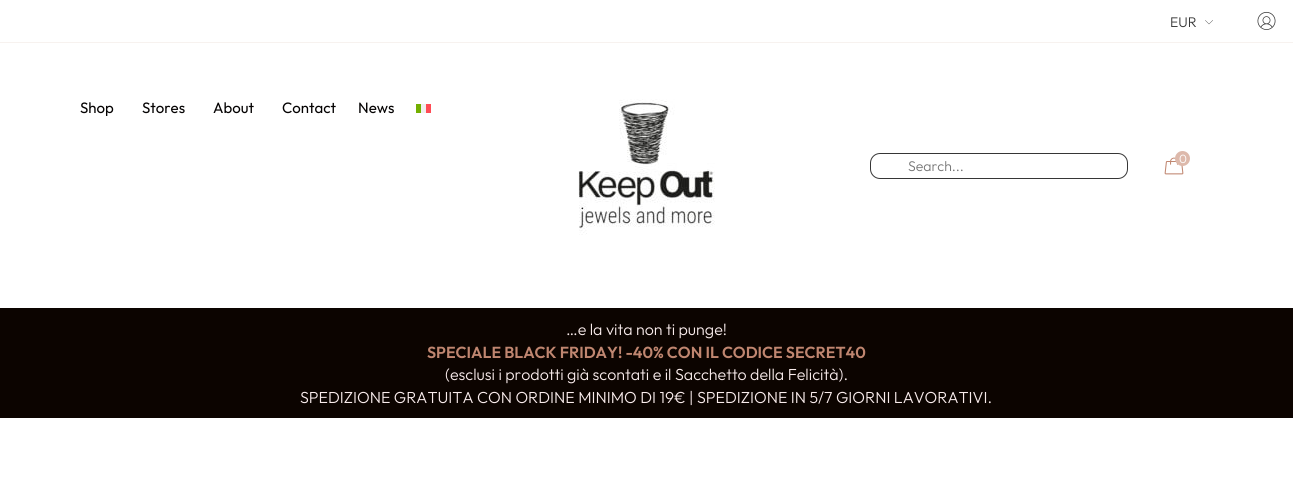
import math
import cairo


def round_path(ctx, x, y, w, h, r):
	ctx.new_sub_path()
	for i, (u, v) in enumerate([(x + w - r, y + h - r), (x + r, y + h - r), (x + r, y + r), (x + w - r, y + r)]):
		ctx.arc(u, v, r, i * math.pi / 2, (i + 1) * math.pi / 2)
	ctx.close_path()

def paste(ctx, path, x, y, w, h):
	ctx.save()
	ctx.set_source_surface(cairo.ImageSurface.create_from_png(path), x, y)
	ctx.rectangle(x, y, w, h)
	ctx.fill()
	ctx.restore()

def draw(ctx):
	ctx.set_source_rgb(1, 1, 1)
	ctx.paint()
	ctx.set_source_rgb(0.965, 0.949, 0.937)
	ctx.rectangle(0, 42, 1293, 1)
	ctx.fill()
	ctx.select_font_face('Outfit Thin')
	ctx.set_font_size(14)
	ctx.set_source_rgb(0.212, 0.212, 0.212)
	ctx.move_to(1170, 27)
	ctx.show_text('EUR')
	paste(ctx, 'media/1.png', 1205, 20, 8, 5)
	paste(ctx, 'media/2.png', 1257, 11, 19, 19)
	ctx.select_font_face('Outfit')
	ctx.set_font_size(15)
	ctx.set_source_rgb(0.016, 0.008, 0.008)
	for x, y, s in [
		(80, 113, 'Shop'),
		(142, 113, 'Stores'),
		(213, 113, 'About'),
		(282, 113, 'Contact'),
		(358, 113, 'News'),
	]:
		ctx.move_to(x, y)
		ctx.show_text(s)
	ctx.set_source_rgb(0.451, 0.686, 0)
	ctx.rectangle(416, 104, 5, 9)
	ctx.fill()
	ctx.set_source_rgb(0.941, 0.941, 0.941)
	ctx.rectangle(421, 104, 5, 9)
	ctx.fill()
	ctx.set_source_rgb(1, 0.294, 0.333)
	ctx.rectangle(426, 104, 5, 9)
	ctx.fill()
	paste(ctx, 'media/3.png', 578, 99, 137, 136)
	paste(ctx, 'media/4.png', 1164, 157, 20, 18)
	ctx.set_source_rgb(0.867, 0.725, 0.671)
	ctx.arc(1182.5, 158.5, 7.5, 0, 2 * math.pi)
	ctx.fill()
	ctx.select_font_face('Outfit Thin')
	ctx.set_font_size(12)
	ctx.set_source_rgb(1, 1, 1)
	ctx.move_to(1179, 163)
	ctx.show_text('0')
	round_path(ctx, 870.5, 153.5, 257, 25, 9.5)
	ctx.set_source_rgb(0.212, 0.212, 0.212)
	ctx.set_line_width(1)
	ctx.stroke()
	ctx.set_font_size(14)
	ctx.set_source_rgb(0.459, 0.459, 0.459)
	ctx.move_to(908, 171)
	ctx.show_text('Search...')
	ctx.set_source_rgb(0.047, 0.016, 0)
	ctx.rectangle(0, 308, 1293, 110)
	ctx.fill()
	ctx.set_font_size(16)
	ctx.set_source_rgb(0.973, 0.925, 0.925)
	ctx.move_to(566, 335)
	ctx.show_text('…e la vita non ti punge!')
	ctx.select_font_face('Outfit SemiBold')
	ctx.set_source_rgb(0.753, 0.525, 0.439)
	ctx.move_to(427, 358)
	ctx.show_text('SPECIALE BLACK FRIDAY! -40% CON IL CODICE SECRET40')
	ctx.select_font_face('Outfit Thin')
	ctx.set_source_rgb(0.973, 0.925, 0.925)
	ctx.move_to(445, 380)
	ctx.show_text('(esclusi i prodotti già scontati e il Sacchetto della Felicità).')
	ctx.move_to(300, 403)
	ctx.show_text('SPEDIZIONE GRATUITA CON ORDINE MINIMO DI 19€ | SPEDIZIONE IN 5/7 GIORNI LAVORATIVI.')


surface = cairo.ImageSurface(cairo.FORMAT_RGB24, 1293, 504)
ctx = cairo.Context(surface)
options = cairo.FontOptions()
options.set_hint_metrics(cairo.HINT_METRICS_OFF)
options.set_hint_style(cairo.HINT_STYLE_NONE)
ctx.set_font_options(options)
ctx.set_miter_limit(4)
draw(ctx)
surface.write_to_png('image.png')
